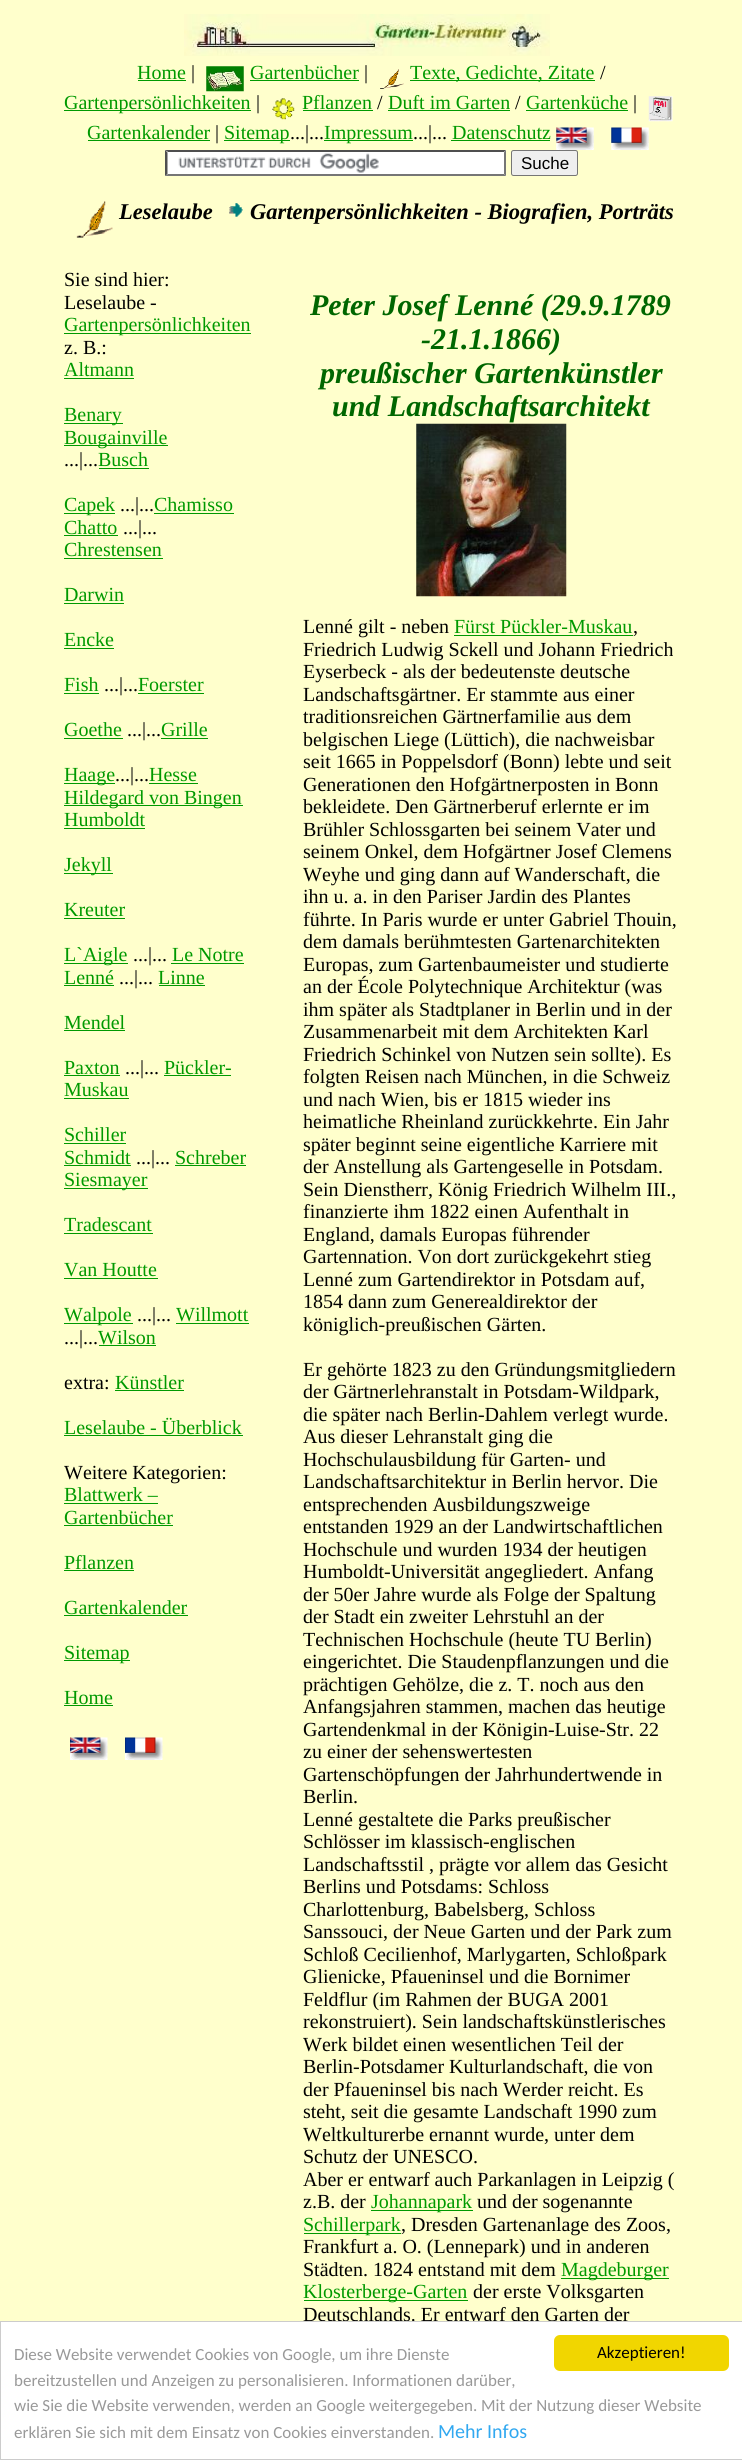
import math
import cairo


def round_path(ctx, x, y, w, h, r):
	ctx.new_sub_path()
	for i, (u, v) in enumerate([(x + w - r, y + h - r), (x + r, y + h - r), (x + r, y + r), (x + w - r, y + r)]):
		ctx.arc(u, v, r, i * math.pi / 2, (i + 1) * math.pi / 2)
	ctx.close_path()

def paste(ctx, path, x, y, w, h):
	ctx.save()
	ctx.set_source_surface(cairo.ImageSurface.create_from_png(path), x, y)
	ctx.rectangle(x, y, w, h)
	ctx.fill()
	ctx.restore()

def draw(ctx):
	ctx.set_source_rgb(1, 1, 0.8)
	ctx.paint()
	paste(ctx, 'media/1.png', 184, 14, 366, 42)
	ctx.select_font_face('Liberation Serif')
	ctx.set_font_size(20)
	ctx.set_source_rgb(0, 0.6, 0)
	ctx.move_to(137, 79)
	ctx.show_text('Home')
	ctx.rectangle(138, 80, 48, 1)
	ctx.fill()
	ctx.set_source_rgb(0, 0, 0)
	ctx.move_to(191, 79)
	ctx.show_text('|')
	paste(ctx, 'media/2.png', 206, 66, 38, 26)
	ctx.set_source_rgb(0, 0.6, 0)
	ctx.move_to(250, 79)
	ctx.show_text('Gartenbücher')
	ctx.rectangle(250, 80, 109, 1)
	ctx.fill()
	ctx.set_source_rgb(0, 0, 0)
	ctx.move_to(364, 79)
	ctx.show_text('|')
	paste(ctx, 'media/3.png', 380, 69, 24, 20)
	ctx.set_source_rgb(0, 0.6, 0)
	ctx.rectangle(410, 80, 185, 1)
	ctx.fill()
	ctx.move_to(410, 79)
	ctx.show_text('Texte, Gedichte, Zitate')
	ctx.set_source_rgb(0, 0, 0)
	ctx.move_to(600, 79)
	ctx.show_text('/')
	ctx.set_source_rgb(0, 0.6, 0)
	ctx.rectangle(64, 110, 187, 1)
	ctx.fill()
	ctx.move_to(64, 109)
	ctx.show_text('Gartenpersönlichkeiten')
	ctx.set_source_rgb(0, 0, 0)
	ctx.move_to(256, 109)
	ctx.show_text('|')
	paste(ctx, 'media/4.png', 272, 98, 23, 22)
	ctx.set_source_rgb(0, 0.6, 0)
	ctx.move_to(302, 109)
	ctx.show_text('Pflanzen')
	ctx.rectangle(303, 110, 70, 1)
	ctx.fill()
	ctx.set_source_rgb(0, 0, 0)
	ctx.move_to(377, 109)
	ctx.show_text('/')
	ctx.set_source_rgb(0, 0.6, 0)
	ctx.move_to(388, 109)
	ctx.show_text('Duft im Garten')
	ctx.rectangle(388, 110, 122, 1)
	ctx.fill()
	ctx.set_source_rgb(0, 0, 0)
	ctx.move_to(515, 109)
	ctx.show_text('/')
	ctx.set_source_rgb(0, 0.6, 0)
	ctx.move_to(526, 109)
	ctx.show_text('Gartenküche')
	ctx.rectangle(526, 110, 102, 1)
	ctx.fill()
	ctx.set_source_rgb(0, 0, 0)
	ctx.move_to(633, 109)
	ctx.show_text('|')
	paste(ctx, 'media/5.png', 648, 96, 25, 26)
	ctx.set_source_rgb(0, 0.6, 0)
	ctx.move_to(87, 139)
	ctx.show_text('Gartenkalender')
	ctx.rectangle(88, 140, 122, 1)
	ctx.fill()
	ctx.set_source_rgb(0, 0, 0)
	ctx.move_to(215, 139)
	ctx.show_text('|')
	ctx.set_source_rgb(0, 0.6, 0)
	ctx.rectangle(224, 140, 66, 1)
	ctx.fill()
	ctx.move_to(224, 139)
	ctx.show_text('Sitemap')
	ctx.set_source_rgb(0, 0, 0)
	ctx.move_to(290, 139)
	ctx.show_text('...|...')
	ctx.set_source_rgb(0, 0.6, 0)
	ctx.rectangle(324, 140, 89, 1)
	ctx.fill()
	ctx.move_to(324, 139)
	ctx.show_text('Impressum')
	ctx.set_source_rgb(0, 0, 0)
	ctx.move_to(413, 139)
	ctx.show_text('...|...')
	ctx.set_source_rgb(0, 0.6, 0)
	ctx.move_to(452, 139)
	ctx.show_text('Datenschutz')
	ctx.rectangle(451, 140, 99, 1)
	ctx.fill()
	paste(ctx, 'media/6.png', 556, 127, 38, 23)
	paste(ctx, 'media/7.png', 611, 127, 38, 23)
	ctx.set_source_rgb(1, 1, 1)
	ctx.rectangle(165, 150, 341, 26)
	ctx.fill()
	paste(ctx, 'media/8.png', 178, 153, 201, 20)
	ctx.set_source_rgb(0.31, 0.31, 0.31)
	ctx.new_path()
	ctx.move_to(165, 150)
	ctx.line_to(506, 150)
	ctx.line_to(504, 152)
	ctx.line_to(168, 152)
	ctx.close_path()
	ctx.fill()
	ctx.set_source_rgb(0.463, 0.463, 0.463)
	ctx.new_path()
	ctx.move_to(506, 150)
	ctx.line_to(506, 176)
	ctx.line_to(504, 174)
	ctx.line_to(504, 152.5)
	ctx.close_path()
	ctx.fill()
	ctx.new_path()
	ctx.move_to(506, 176)
	ctx.line_to(165, 176)
	ctx.line_to(168, 174)
	ctx.line_to(504, 174)
	ctx.close_path()
	ctx.fill()
	ctx.set_source_rgb(0.31, 0.31, 0.31)
	ctx.new_path()
	ctx.move_to(165, 176)
	ctx.line_to(165, 150)
	ctx.line_to(167.5, 152.5)
	ctx.line_to(167.5, 174)
	ctx.close_path()
	ctx.fill()
	ctx.set_source_rgb(0.937, 0.937, 0.937)
	round_path(ctx, 511.5, 150.5, 66, 25, 2)
	ctx.fill_preserve()
	ctx.set_source_rgb(0.463, 0.463, 0.463)
	ctx.set_line_width(1)
	ctx.stroke()
	ctx.select_font_face('Liberation Sans')
	ctx.set_font_size(17)
	ctx.set_source_rgb(0, 0, 0)
	ctx.move_to(521, 169)
	ctx.show_text('Suche')
	paste(ctx, 'media/9.png', 76, 201, 37, 37)
	ctx.select_font_face('Liberation Serif', cairo.FONT_SLANT_ITALIC, cairo.FONT_WEIGHT_BOLD)
	ctx.set_font_size(22.5)
	ctx.move_to(119, 219)
	ctx.show_text('Leselaube')
	paste(ctx, 'media/10.png', 229, 203, 14, 14)
	ctx.move_to(250, 219)
	ctx.show_text('Gartenpersönlichkeiten - Biografien, Porträts')
	ctx.select_font_face('Liberation Serif')
	ctx.set_font_size(20)
	ctx.move_to(64, 286)
	ctx.show_text('Sie sind hier:')
	ctx.move_to(64, 309)
	ctx.show_text('Leselaube -')
	ctx.set_source_rgb(0, 0.6, 0)
	ctx.rectangle(64, 333, 187, 1)
	ctx.fill()
	ctx.move_to(64, 331)
	ctx.show_text('Gartenpersönlichkeiten')
	ctx.set_source_rgb(0, 0, 0)
	ctx.move_to(64, 354)
	ctx.show_text('z. B.:')
	ctx.set_source_rgb(0, 0.6, 0)
	ctx.move_to(64, 376)
	ctx.show_text('Altmann')
	ctx.rectangle(64, 378, 70, 1)
	ctx.fill()
	ctx.rectangle(64, 423, 59, 1)
	ctx.fill()
	ctx.move_to(64, 421)
	ctx.show_text('Benary')
	ctx.rectangle(64, 445, 104, 1)
	ctx.fill()
	ctx.move_to(64, 444)
	ctx.show_text('Bougainville')
	ctx.set_source_rgb(0, 0, 0)
	ctx.move_to(64, 466)
	ctx.show_text('...|...')
	ctx.set_source_rgb(0, 0.6, 0)
	ctx.move_to(98, 466)
	ctx.show_text('Busch')
	ctx.rectangle(99, 468, 50, 1)
	ctx.fill()
	ctx.rectangle(64, 513, 51, 1)
	ctx.fill()
	ctx.move_to(64, 511)
	ctx.show_text('Capek')
	ctx.set_source_rgb(0, 0, 0)
	ctx.move_to(120, 511)
	ctx.show_text('...|...')
	ctx.set_source_rgb(0, 0.6, 0)
	ctx.move_to(154, 511)
	ctx.show_text('Chamisso')
	ctx.rectangle(154, 513, 80, 1)
	ctx.fill()
	ctx.move_to(64, 534)
	ctx.show_text('Chatto')
	ctx.rectangle(64, 535, 54, 1)
	ctx.fill()
	ctx.set_source_rgb(0, 0, 0)
	ctx.move_to(123, 534)
	ctx.show_text('...|...')
	ctx.set_source_rgb(0, 0.6, 0)
	ctx.move_to(64, 556)
	ctx.show_text('Chrestensen')
	ctx.rectangle(64, 558, 99, 1)
	ctx.fill()
	ctx.move_to(64, 601)
	ctx.show_text('Darwin')
	ctx.rectangle(64, 603, 60, 1)
	ctx.fill()
	ctx.move_to(64, 646)
	ctx.show_text('Encke')
	ctx.rectangle(64, 648, 50, 1)
	ctx.fill()
	ctx.move_to(64, 691)
	ctx.show_text('Fish')
	ctx.rectangle(64, 693, 35, 1)
	ctx.fill()
	ctx.set_source_rgb(0, 0, 0)
	ctx.move_to(104, 691)
	ctx.show_text('...|...')
	ctx.set_source_rgb(0, 0.6, 0)
	ctx.move_to(138, 691)
	ctx.show_text('Foerster')
	ctx.rectangle(138, 693, 66, 1)
	ctx.fill()
	ctx.move_to(64, 736)
	ctx.show_text('Goethe')
	ctx.rectangle(64, 738, 59, 1)
	ctx.fill()
	ctx.set_source_rgb(0, 0, 0)
	ctx.move_to(127, 736)
	ctx.show_text('...|...')
	ctx.set_source_rgb(0, 0.6, 0)
	ctx.move_to(161, 736)
	ctx.show_text('Grille')
	ctx.rectangle(161, 738, 47, 1)
	ctx.fill()
	ctx.rectangle(64, 783, 51, 1)
	ctx.fill()
	ctx.move_to(64, 781)
	ctx.show_text('Haage')
	ctx.set_source_rgb(0, 0, 0)
	ctx.move_to(115, 781)
	ctx.show_text('...|...')
	ctx.set_source_rgb(0, 0.6, 0)
	ctx.move_to(149, 781)
	ctx.show_text('Hesse')
	ctx.rectangle(149, 783, 49, 1)
	ctx.fill()
	ctx.rectangle(64, 805, 179, 1)
	ctx.fill()
	ctx.move_to(64, 804)
	ctx.show_text('Hildegard von Bingen')
	ctx.move_to(64, 826)
	ctx.show_text('Humboldt')
	ctx.rectangle(64, 828, 81, 1)
	ctx.fill()
	ctx.rectangle(64, 873, 49, 1)
	ctx.fill()
	ctx.move_to(64, 871)
	ctx.show_text('Jekyll')
	ctx.move_to(64, 916)
	ctx.show_text('Kreuter')
	ctx.rectangle(64, 918, 61, 1)
	ctx.fill()
	ctx.rectangle(64, 963, 64, 1)
	ctx.fill()
	ctx.move_to(64, 961)
	ctx.show_text('L`Aigle')
	ctx.set_source_rgb(0, 0, 0)
	ctx.move_to(133, 961)
	ctx.show_text('...|...')
	ctx.set_source_rgb(0, 0.6, 0)
	ctx.move_to(172, 961)
	ctx.show_text('Le Notre')
	ctx.rectangle(171, 963, 73, 1)
	ctx.fill()
	ctx.move_to(64, 984)
	ctx.show_text('Lenné')
	ctx.rectangle(64, 985, 50, 1)
	ctx.fill()
	ctx.set_source_rgb(0, 0, 0)
	ctx.move_to(119, 984)
	ctx.show_text('...|...')
	ctx.set_source_rgb(0, 0.6, 0)
	ctx.move_to(158, 984)
	ctx.show_text('Linne')
	ctx.rectangle(159, 985, 46, 1)
	ctx.fill()
	ctx.move_to(64, 1029)
	ctx.show_text('Mendel')
	ctx.rectangle(64, 1030, 61, 1)
	ctx.fill()
	ctx.move_to(64, 1074)
	ctx.show_text('Paxton')
	ctx.rectangle(64, 1075, 56, 1)
	ctx.fill()
	ctx.set_source_rgb(0, 0, 0)
	ctx.move_to(125, 1074)
	ctx.show_text('...|...')
	ctx.set_source_rgb(0, 0.6, 0)
	ctx.move_to(164, 1074)
	ctx.show_text('Pückler-')
	ctx.rectangle(164, 1075, 67, 1)
	ctx.fill()
	ctx.move_to(64, 1096)
	ctx.show_text('Muskau')
	ctx.rectangle(64, 1098, 65, 1)
	ctx.fill()
	ctx.move_to(64, 1141)
	ctx.show_text('Schiller')
	ctx.rectangle(64, 1143, 62, 1)
	ctx.fill()
	ctx.move_to(64, 1164)
	ctx.show_text('Schmidt')
	ctx.rectangle(64, 1165, 67, 1)
	ctx.fill()
	ctx.set_source_rgb(0, 0, 0)
	ctx.move_to(136, 1164)
	ctx.show_text('...|...')
	ctx.set_source_rgb(0, 0.6, 0)
	ctx.move_to(175, 1164)
	ctx.show_text('Schreber')
	ctx.rectangle(175, 1165, 71, 1)
	ctx.fill()
	ctx.rectangle(64, 1188, 84, 1)
	ctx.fill()
	ctx.move_to(64, 1186)
	ctx.show_text('Siesmayer')
	ctx.move_to(64, 1231)
	ctx.show_text('Tradescant')
	ctx.rectangle(64, 1233, 89, 1)
	ctx.fill()
	ctx.move_to(64, 1276)
	ctx.show_text('Van Houtte')
	ctx.rectangle(64, 1278, 94, 1)
	ctx.fill()
	ctx.rectangle(64, 1323, 69, 1)
	ctx.fill()
	ctx.move_to(64, 1321)
	ctx.show_text('Walpole')
	ctx.set_source_rgb(0, 0, 0)
	ctx.move_to(137, 1321)
	ctx.show_text('...|...')
	ctx.set_source_rgb(0, 0.6, 0)
	ctx.move_to(176, 1321)
	ctx.show_text('Willmott')
	ctx.rectangle(176, 1323, 73, 1)
	ctx.fill()
	ctx.set_source_rgb(0, 0, 0)
	ctx.move_to(64, 1344)
	ctx.show_text('...|...')
	ctx.set_source_rgb(0, 0.6, 0)
	ctx.move_to(98, 1344)
	ctx.show_text('Wilson')
	ctx.rectangle(99, 1345, 57, 1)
	ctx.fill()
	ctx.set_source_rgb(0, 0, 0)
	ctx.move_to(64, 1389)
	ctx.show_text('extra:')
	ctx.set_source_rgb(0, 0.6, 0)
	ctx.move_to(115, 1389)
	ctx.show_text('Künstler')
	ctx.rectangle(115, 1390, 69, 1)
	ctx.fill()
	ctx.move_to(64, 1434)
	ctx.show_text('Leselaube - Überblick')
	ctx.rectangle(64, 1435, 179, 1)
	ctx.fill()
	ctx.set_source_rgb(0, 0, 0)
	ctx.move_to(64, 1479)
	ctx.show_text('Weitere Kategorien:')
	ctx.set_source_rgb(0, 0.6, 0)
	ctx.move_to(64, 1501)
	ctx.show_text('Blattwerk –')
	ctx.rectangle(64, 1503, 94, 1)
	ctx.fill()
	ctx.move_to(64, 1524)
	ctx.show_text('Gartenbücher')
	ctx.rectangle(64, 1525, 109, 1)
	ctx.fill()
	ctx.move_to(64, 1569)
	ctx.show_text('Pflanzen')
	ctx.rectangle(64, 1570, 70, 1)
	ctx.fill()
	ctx.move_to(64, 1614)
	ctx.show_text('Gartenkalender')
	ctx.rectangle(64, 1615, 124, 1)
	ctx.fill()
	ctx.rectangle(64, 1660, 66, 1)
	ctx.fill()
	ctx.move_to(64, 1659)
	ctx.show_text('Sitemap')
	ctx.move_to(64, 1704)
	ctx.show_text('Home')
	ctx.rectangle(64, 1705, 49, 1)
	ctx.fill()
	paste(ctx, 'media/11.png', 70, 1737, 38, 23)
	paste(ctx, 'media/12.png', 125, 1737, 38, 23)
	ctx.select_font_face('Liberation Serif', cairo.FONT_SLANT_ITALIC, cairo.FONT_WEIGHT_BOLD)
	ctx.set_font_size(30)
	ctx.set_source_rgb(0, 0.4, 0)
	for x, y, s in [
		(310, 315, 'Peter Josef Lenné (29.9.1789'),
		(421, 349, '-21.1.1866)'),
		(320, 383, 'preußischer Gartenkünstler'),
		(332, 416, 'und Landschaftsarchitekt'),
	]:
		ctx.move_to(x, y)
		ctx.show_text(s)
	paste(ctx, 'media/13.png', 416, 423, 151, 174)
	ctx.select_font_face('Liberation Serif')
	ctx.set_font_size(20)
	ctx.set_source_rgb(0, 0, 0)
	ctx.move_to(303, 633)
	ctx.show_text('Lenné gilt - neben')
	ctx.set_source_rgb(0, 0.6, 0)
	ctx.move_to(454, 633)
	ctx.show_text('Fürst Pückler-Muskau')
	ctx.rectangle(454, 635, 179, 1)
	ctx.fill()
	ctx.set_source_rgb(0, 0, 0)
	for x, y, s in [
		(633, 633, ','),
		(303, 656, 'Friedrich Ludwig Sckell und Johann Friedrich'),
		(303, 678, 'Eyserbeck - als der bedeutenste deutsche'),
		(303, 701, 'Landschaftsgärtner. Er stammte aus einer'),
		(303, 723, 'traditionsreichen Gärtnerfamilie aus dem'),
		(303, 746, 'belgischen Liege (Lüttich), die nachweisbar'),
		(303, 768, 'seit 1665 in Poppelsdorf (Bonn) lebte und seit'),
		(303, 791, 'Generationen den Hofgärtnerposten in Bonn'),
		(303, 813, 'bekleidete. Den Gärtnerberuf erlernte er im'),
		(303, 836, 'Brühler Schlossgarten bei seinem Vater und'),
		(303, 858, 'seinem Onkel, dem Hofgärtner Josef Clemens'),
		(303, 881, 'Weyhe und ging dann auf Wanderschaft, die'),
		(303, 903, 'ihn u. a. in den Pariser Jardin des Plantes'),
		(303, 926, 'führte. In Paris wurde er unter Gabriel Thouin,'),
		(303, 948, 'dem damals berühmtesten Gartenarchitekten'),
		(303, 971, 'Europas, zum Gartenbaumeister und studierte'),
		(303, 993, 'an der École Polytechnique Architektur (was'),
		(303, 1016, 'ihm später als Stadtplaner in Berlin und in der'),
		(303, 1038, 'Zusammenarbeit mit dem Architekten Karl'),
		(303, 1061, 'Friedrich Schinkel von Nutzen sein sollte). Es'),
		(303, 1083, 'folgten Reisen nach München, in die Schweiz'),
		(303, 1106, 'und nach Wien, bis er 1815 wieder ins'),
		(303, 1128, 'heimatliche Rheinland zurückkehrte. Ein Jahr'),
		(303, 1151, 'später beginnt seine eigentliche Karriere mit'),
		(303, 1173, 'der Anstellung als Gartengeselle in Potsdam.'),
		(303, 1196, 'Sein Dienstherr, König Friedrich Wilhelm III.,'),
		(303, 1218, 'finanzierte ihm 1822 einen Aufenthalt in'),
		(303, 1241, 'England, damals Europas führender'),
		(303, 1263, 'Gartennation. Von dort zurückgekehrt stieg'),
		(303, 1286, 'Lenné zum Gartendirektor in Potsdam auf,'),
		(303, 1308, '1854 dann zum Generealdirektor der'),
		(303, 1331, 'königlich-preußischen Gärten.'),
		(303, 1376, 'Er gehörte 1823 zu den Gründungsmitgliedern'),
		(303, 1398, 'der Gärtnerlehranstalt in Potsdam-Wildpark,'),
		(303, 1421, 'die später nach Berlin-Dahlem verlegt wurde.'),
		(303, 1443, 'Aus dieser Lehranstalt ging die'),
		(303, 1466, 'Hochschulausbildung für Garten- und'),
		(303, 1488, 'Landschaftsarchitektur in Berlin hervor. Die'),
		(303, 1511, 'entsprechenden Ausbildungszweige'),
		(303, 1533, 'entstanden 1929 an der Landwirtschaftlichen'),
		(303, 1556, 'Hochschule und wurden 1934 der heutigen'),
		(303, 1578, 'Humboldt-Universität angegliedert. Anfang'),
		(303, 1601, 'der 50er Jahre wurde als Folge der Spaltung'),
		(303, 1623, 'der Stadt ein zweiter Lehrstuhl an der'),
		(303, 1646, 'Technischen Hochschule (heute TU Berlin)'),
		(303, 1668, 'eingerichtet. Die Staudenpflanzungen und die'),
		(303, 1691, 'prächtigen Gehölze, die z. T. noch aus den'),
		(303, 1713, 'Anfangsjahren stammen, machen das heutige'),
		(303, 1736, 'Gartendenkmal in der Königin-Luise-Str. 22'),
		(303, 1758, 'zu einer der sehenswertesten'),
		(303, 1781, 'Gartenschöpfungen der Jahrhundertwende in'),
		(303, 1803, 'Berlin.'),
		(303, 1826, 'Lenné gestaltete die Parks preußischer'),
		(303, 1848, 'Schlösser im klassisch-englischen'),
		(303, 1871, 'Landschaftsstil , prägte vor allem das Gesicht'),
		(303, 1893, 'Berlins und Potsdams: Schloss'),
		(303, 1916, 'Charlottenburg, Babelsberg, Schloss'),
		(303, 1938, 'Sanssouci, der Neue Garten und der Park zum'),
		(303, 1961, 'Schloß Cecilienhof, Marlygarten, Schloßpark'),
		(303, 1983, 'Glienicke, Pfaueninsel und die Bornimer'),
		(303, 2006, 'Feldflur (im Rahmen der BUGA 2001'),
		(303, 2028, 'rekonstruiert). Sein landschaftskünstlerisches'),
		(303, 2051, 'Werk bildet einen wesentlichen Teil der'),
		(303, 2073, 'Berlin-Potsdamer Kulturlandschaft, die von'),
		(303, 2096, 'der Pfaueninsel bis nach Werder reicht. Es'),
		(303, 2118, 'steht, seit die gesamte Landschaft 1990 zum'),
		(303, 2141, 'Weltkulturerbe ernannt wurde, unter dem'),
		(303, 2163, 'Schutz der UNESCO.'),
		(303, 2186, 'Aber er entwarf auch Parkanlagen in Leipzig ('),
		(303, 2208, 'z.B. der'),
	]:
		ctx.move_to(x, y)
		ctx.show_text(s)
	ctx.set_source_rgb(0, 0.6, 0)
	ctx.rectangle(371, 2210, 102, 1)
	ctx.fill()
	ctx.move_to(371, 2208)
	ctx.show_text('Johannapark')
	ctx.set_source_rgb(0, 0, 0)
	ctx.move_to(477, 2208)
	ctx.show_text('und der sogenannte')
	ctx.set_source_rgb(0, 0.6, 0)
	ctx.rectangle(304, 2233, 97, 1)
	ctx.fill()
	ctx.move_to(303, 2231)
	ctx.show_text('Schillerpark')
	ctx.set_source_rgb(0, 0, 0)
	for x, y, s in [
		(401, 2231, ', Dresden Gartenanlage des Zoos,'),
		(303, 2253, 'Frankfurt a. O. (Lennepark) und in anderen'),
		(303, 2276, 'Städten. 1824 entstand mit dem'),
	]:
		ctx.move_to(x, y)
		ctx.show_text(s)
	ctx.set_source_rgb(0, 0.6, 0)
	ctx.rectangle(561, 2278, 108, 1)
	ctx.fill()
	ctx.move_to(561, 2276)
	ctx.show_text('Magdeburger')
	ctx.rectangle(304, 2300, 164, 1)
	ctx.fill()
	ctx.move_to(303, 2298)
	ctx.show_text('Klosterberge-Garten')
	ctx.set_source_rgb(0, 0, 0)
	ctx.move_to(473, 2298)
	ctx.show_text('der erste Volksgarten')
	ctx.move_to(303, 2321)
	ctx.show_text('Deutschlands. Er entwarf den Garten der')
	ctx.set_source_rgb(1, 1, 1)
	ctx.rectangle(0.5, 2321.5, 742, 138)
	ctx.fill_preserve()
	ctx.set_source_rgb(0.8, 0.8, 0.8)
	ctx.stroke()
	ctx.set_source_rgb(0.945, 0.839, 0)
	round_path(ctx, 554, 2335, 175, 36, 6)
	ctx.fill()
	ctx.select_font_face('Carlito')
	ctx.set_font_size(17)
	ctx.set_source_rgb(0, 0, 0)
	ctx.move_to(597, 2358)
	ctx.show_text('Akzeptieren!')
	ctx.set_source_rgb(0.6, 0.6, 0.6)
	for x, y, s in [
		(14, 2360, 'Diese Website verwendet Cookies von Google, um ihre Dienste'),
		(14, 2386, 'bereitzustellen und Anzeigen zu personalisieren. Informationen darüber,'),
		(14, 2411, 'wie Sie die Website verwenden, werden an Google weitergegeben. Mit der Nutzung dieser Website'),
		(14, 2438, 'erklären Sie sich mit dem Einsatz von Cookies einverstanden.'),
	]:
		ctx.move_to(x, y)
		ctx.show_text(s)
	ctx.set_font_size(20)
	ctx.set_source_rgb(0.192, 0.659, 0.941)
	ctx.move_to(438, 2438)
	ctx.show_text('Mehr Infos')


surface = cairo.ImageSurface(cairo.FORMAT_RGB24, 742, 2460)
ctx = cairo.Context(surface)
options = cairo.FontOptions()
options.set_hint_metrics(cairo.HINT_METRICS_OFF)
options.set_hint_style(cairo.HINT_STYLE_NONE)
ctx.set_font_options(options)
ctx.set_miter_limit(4)
draw(ctx)
surface.write_to_png('image.png')
